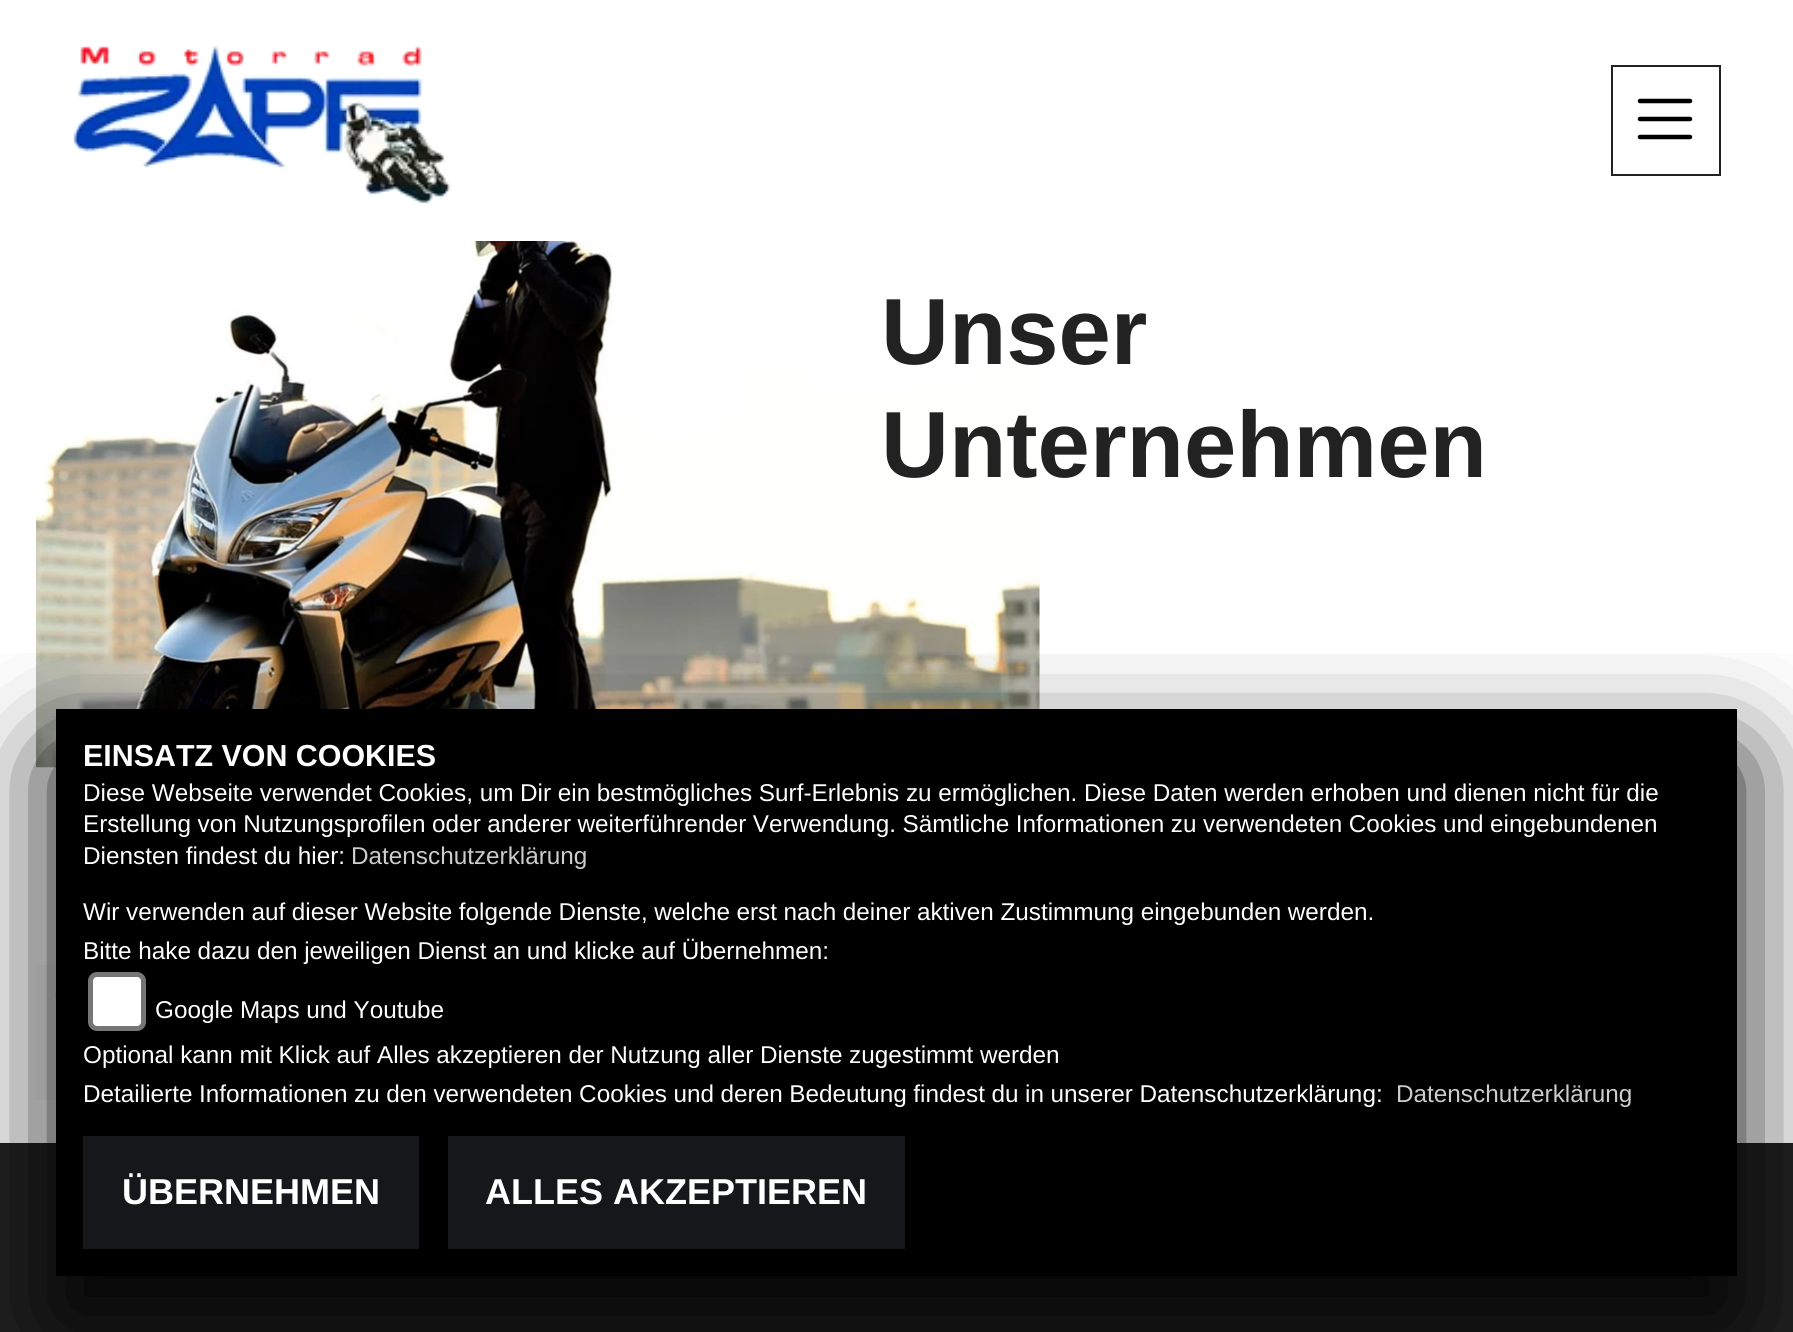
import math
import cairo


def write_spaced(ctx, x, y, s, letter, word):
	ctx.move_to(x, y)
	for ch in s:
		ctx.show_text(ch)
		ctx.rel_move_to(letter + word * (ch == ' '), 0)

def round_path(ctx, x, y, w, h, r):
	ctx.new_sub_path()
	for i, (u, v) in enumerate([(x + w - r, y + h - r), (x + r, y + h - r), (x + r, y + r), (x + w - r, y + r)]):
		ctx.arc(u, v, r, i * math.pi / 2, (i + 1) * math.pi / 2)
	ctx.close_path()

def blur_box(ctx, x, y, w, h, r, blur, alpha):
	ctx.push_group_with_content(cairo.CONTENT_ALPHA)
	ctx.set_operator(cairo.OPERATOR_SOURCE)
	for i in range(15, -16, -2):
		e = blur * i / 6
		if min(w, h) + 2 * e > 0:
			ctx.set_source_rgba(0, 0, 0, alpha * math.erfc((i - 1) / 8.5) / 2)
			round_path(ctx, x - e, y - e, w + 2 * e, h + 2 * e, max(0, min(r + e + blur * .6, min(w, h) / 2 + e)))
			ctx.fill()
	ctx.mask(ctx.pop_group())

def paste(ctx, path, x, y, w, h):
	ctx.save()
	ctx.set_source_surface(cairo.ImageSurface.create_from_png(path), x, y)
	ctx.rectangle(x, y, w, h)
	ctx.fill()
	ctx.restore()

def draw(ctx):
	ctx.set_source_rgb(1, 1, 1)
	ctx.paint()
	paste(ctx, 'media/1.png', 73, 45, 378, 160)
	ctx.rectangle(1612, 66, 108, 109)
	ctx.set_source_rgb(0.133, 0.133, 0.133)
	ctx.stroke()
	ctx.new_path()
	ctx.move_to(1640, 101)
	ctx.line_to(1690, 101)
	ctx.move_to(1640, 119)
	ctx.line_to(1690, 119)
	ctx.move_to(1640, 137)
	ctx.line_to(1690, 137)
	ctx.set_source_rgb(0, 0, 0)
	ctx.set_line_width(4.5)
	ctx.set_line_cap(cairo.LINE_CAP_ROUND)
	ctx.stroke()
	paste(ctx, 'media/2.png', 36, 241, 1004, 527)
	ctx.select_font_face('Liberation Sans', cairo.FONT_SLANT_NORMAL, cairo.FONT_WEIGHT_BOLD)
	ctx.set_font_size(94)
	ctx.set_source_rgb(0.133, 0.133, 0.133)
	ctx.move_to(881, 364)
	ctx.show_text('Unser')
	ctx.move_to(881, 477)
	ctx.show_text('Unternehmen')
	ctx.set_source_rgb(0.969, 0.969, 0.969)
	ctx.rectangle(36, 965, 20, 135)
	ctx.fill()
	paste(ctx, 'media/3.png', 55, 992, 1, 7)
	ctx.set_source_rgb(0.133, 0.133, 0.133)
	ctx.rectangle(0, 1143, 1793, 189)
	ctx.fill()
	ctx.save()
	ctx.rectangle(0, 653, 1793, 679)
	ctx.clip()
	ctx.set_source_rgb(0, 0, 0)
	blur_box(ctx, 56, 758, 1681, 567, 0, 56, 1)
	ctx.restore()
	ctx.set_source_rgb(0, 0, 0)
	ctx.rectangle(56, 709, 1681, 567)
	ctx.fill()
	ctx.set_font_size(30.4)
	ctx.set_source_rgb(1, 1, 1)
	ctx.move_to(83, 766)
	ctx.show_text('EINSATZ VON COOKIES')
	ctx.select_font_face('Liberation Sans')
	ctx.set_font_size(24.3)
	write_spaced(ctx, 83, 801, 'Diese Webseite verwendet Cookies, um Dir ein bestmögliches Surf-Erlebnis zu ermöglichen. Diese Daten werden erhoben und dienen nicht für die', 0, -0.1)
	write_spaced(ctx, 83, 832, 'Erstellung von Nutzungsprofilen oder anderer weiterführender Verwendung. Sämtliche Informationen zu verwendeten Cookies und eingebundenen', 0, -0.25)
	ctx.move_to(83, 864)
	ctx.show_text('Diensten findest du hier:')
	ctx.set_source_rgb(0.8, 0.8, 0.8)
	ctx.move_to(351, 864)
	ctx.show_text('Datenschutzerklärung')
	ctx.set_source_rgb(1, 1, 1)
	write_spaced(ctx, 83, 920, 'Wir verwenden auf dieser Website folgende Dienste, welche erst nach deiner aktiven Zustimmung eingebunden werden.', 0, -0.2)
	write_spaced(ctx, 83, 959, 'Bitte hake dazu den jeweiligen Dienst an und klicke auf Übernehmen:', 0, -0.1)
	round_path(ctx, 90.5, 974.5, 53, 54, 6.5)
	ctx.fill_preserve()
	ctx.set_source_rgb(0.463, 0.463, 0.463)
	ctx.set_line_width(5)
	ctx.set_line_cap(cairo.LINE_CAP_BUTT)
	ctx.stroke()
	ctx.set_source_rgb(1, 1, 1)
	ctx.move_to(155, 1018)
	ctx.show_text('Google Maps und Youtube')
	write_spaced(ctx, 83, 1063, 'Optional kann mit Klick auf Alles akzeptieren der Nutzung aller Dienste zugestimmt werden', 0, -0.1)
	write_spaced(ctx, 83, 1102, 'Detailierte Informationen zu den verwendeten Cookies und deren Bedeutung findest du in unserer Datenschutzerklärung:', 0, -0.2)
	ctx.set_source_rgb(0.8, 0.8, 0.8)
	ctx.move_to(1396, 1102)
	ctx.show_text('Datenschutzerklärung')
	ctx.set_source_rgb(0.086, 0.09, 0.102)
	ctx.rectangle(83, 1136, 336, 113)
	ctx.fill()
	ctx.select_font_face('Liberation Sans', cairo.FONT_SLANT_NORMAL, cairo.FONT_WEIGHT_BOLD)
	ctx.set_font_size(36)
	ctx.set_source_rgb(1, 1, 1)
	ctx.move_to(122, 1204)
	ctx.show_text('ÜBERNEHMEN')
	ctx.set_source_rgb(0.086, 0.09, 0.102)
	ctx.rectangle(448, 1136, 457, 113)
	ctx.fill()
	ctx.set_source_rgb(1, 1, 1)
	ctx.move_to(485, 1204)
	ctx.show_text('ALLES AKZEPTIEREN')


surface = cairo.ImageSurface(cairo.FORMAT_RGB24, 1793, 1332)
ctx = cairo.Context(surface)
options = cairo.FontOptions()
options.set_hint_metrics(cairo.HINT_METRICS_OFF)
options.set_hint_style(cairo.HINT_STYLE_NONE)
ctx.set_font_options(options)
ctx.set_miter_limit(4)
draw(ctx)
surface.write_to_png('image.png')
